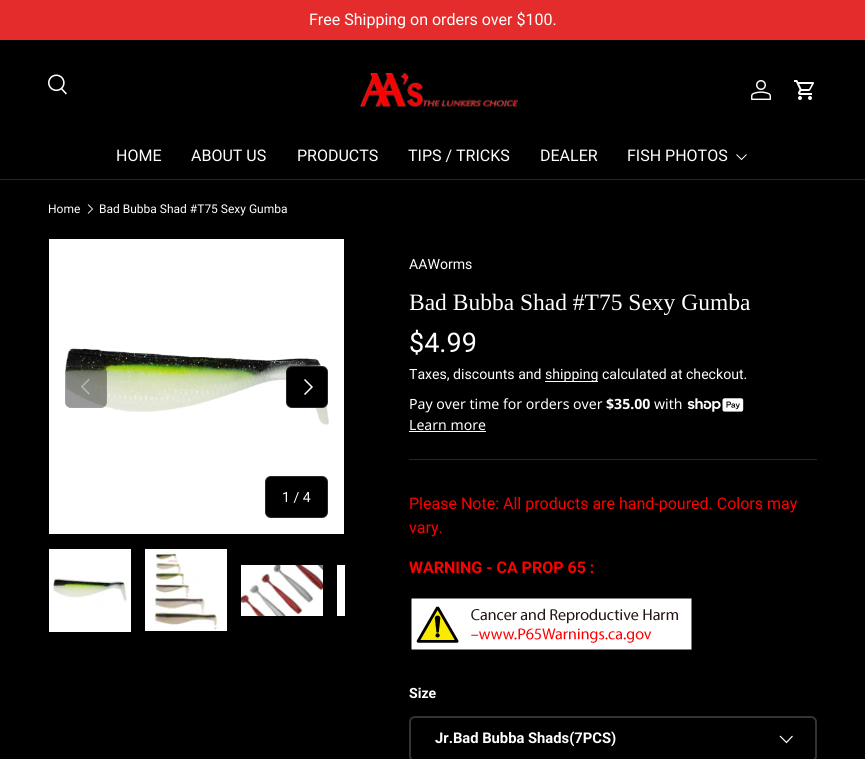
import math
import cairo


def round_path(ctx, x, y, w, h, r):
	ctx.new_sub_path()
	for i, (u, v) in enumerate([(x + w - r, y + h - r), (x + r, y + h - r), (x + r, y + r), (x + w - r, y + r)]):
		ctx.arc(u, v, r, i * math.pi / 2, (i + 1) * math.pi / 2)
	ctx.close_path()

def paste(ctx, path, x, y, w, h):
	ctx.save()
	ctx.set_source_surface(cairo.ImageSurface.create_from_png(path), x, y)
	ctx.rectangle(x, y, w, h)
	ctx.fill()
	ctx.restore()

def draw(ctx):
	ctx.set_source_rgb(0, 0, 0)
	ctx.paint()
	ctx.set_source_rgb(0.89, 0.173, 0.169)
	ctx.rectangle(0, 0, 865, 40)
	ctx.fill()
	ctx.select_font_face('Roboto')
	ctx.set_font_size(16)
	ctx.set_source_rgb(1, 1, 1)
	ctx.move_to(309, 25)
	ctx.show_text('Free Shipping on orders over $100.')
	paste(ctx, 'media/1.png', 48, 74, 19, 21)
	paste(ctx, 'media/2.png', 360, 72, 158, 35)
	paste(ctx, 'media/3.png', 751, 80, 20, 20)
	paste(ctx, 'media/4.png', 794, 80, 20, 20)
	for x, y, s in [
		(116, 161, 'HOME'),
		(191, 161, 'ABOUT US'),
		(297, 161, 'PRODUCTS'),
		(408, 161, 'TIPS / TRICKS'),
		(540, 161, 'DEALER'),
		(627, 161, 'FISH PHOTOS'),
	]:
		ctx.move_to(x, y)
		ctx.show_text(s)
	ctx.new_path()
	ctx.move_to(746.5, 154.5)
	ctx.line_to(741.5, 159.5)
	ctx.line_to(736.5, 154.5)
	ctx.set_line_width(1)
	ctx.stroke()
	ctx.set_source_rgb(0.149, 0.149, 0.149)
	ctx.rectangle(0, 179, 865, 1)
	ctx.fill()
	ctx.set_font_size(12)
	ctx.set_source_rgb(1, 1, 1)
	ctx.move_to(48, 213)
	ctx.show_text('Home')
	ctx.new_path()
	ctx.move_to(88, 204.5)
	ctx.line_to(92.5, 209)
	ctx.line_to(88, 213.5)
	ctx.set_line_width(0.9)
	ctx.stroke()
	ctx.move_to(99, 213)
	ctx.show_text('Bad Bubba Shad #T75 Sexy Gumba')
	paste(ctx, 'media/5.png', 49, 239, 295, 295)
	ctx.set_source_rgba(0, 0, 0, 0.4)
	round_path(ctx, 65, 366, 42, 42, 6)
	ctx.fill()
	ctx.rectangle(65.5, 366.5, 41, 41)
	ctx.set_source_rgba(1, 1, 1, 0.06)
	ctx.set_line_width(1)
	ctx.stroke()
	paste(ctx, 'media/6.png', 81, 378, 9, 17)
	ctx.set_source_rgb(0, 0, 0)
	round_path(ctx, 286, 366, 42, 42, 6)
	ctx.fill()
	round_path(ctx, 286.5, 366.5, 41, 41, 5.5)
	ctx.set_source_rgba(1, 1, 1, 0.15)
	ctx.stroke()
	ctx.new_path()
	ctx.move_to(304.5, 379.5)
	ctx.line_to(312, 387)
	ctx.line_to(304.5, 394.5)
	ctx.set_source_rgb(1, 1, 1)
	ctx.set_line_width(1.5)
	ctx.stroke()
	ctx.set_source_rgb(0, 0, 0)
	round_path(ctx, 265, 476, 63, 42, 6)
	ctx.fill()
	round_path(ctx, 265.5, 476.5, 62, 41, 5.5)
	ctx.set_source_rgba(1, 1, 1, 0.15)
	ctx.set_line_width(1)
	ctx.stroke()
	ctx.set_font_size(14.1)
	ctx.set_source_rgb(1, 1, 1)
	ctx.move_to(282, 502)
	ctx.show_text('1 / 4')
	paste(ctx, 'media/7.png', 49, 549, 82, 81)
	ctx.rectangle(49, 630, 82, 2)
	ctx.fill()
	paste(ctx, 'media/8.png', 145, 549, 82, 82)
	paste(ctx, 'media/9.png', 241, 565, 82, 51)
	ctx.rectangle(337, 565, 8, 51)
	ctx.fill()
	ctx.move_to(409, 269)
	ctx.show_text('AAWorms')
	ctx.select_font_face('Liberation Serif')
	ctx.set_font_size(23.5)
	ctx.move_to(409, 310)
	ctx.show_text('Bad Bubba Shad #T75 Sexy Gumba')
	ctx.select_font_face('Roboto')
	ctx.set_font_size(27)
	ctx.move_to(409, 352)
	ctx.show_text('$4.99')
	ctx.set_font_size(14.1)
	ctx.move_to(409, 379)
	ctx.show_text('Taxes, discounts and')
	ctx.rectangle(545, 381, 53, 1)
	ctx.fill()
	ctx.move_to(545, 379)
	ctx.show_text('shipping calculated at checkout.')
	ctx.select_font_face('Noto Sans')
	ctx.move_to(409, 409)
	ctx.show_text('Pay over time for orders over')
	ctx.select_font_face('Noto Sans', cairo.FONT_SLANT_NORMAL, cairo.FONT_WEIGHT_BOLD)
	ctx.move_to(606, 409)
	ctx.show_text('$35.00')
	ctx.select_font_face('Noto Sans')
	ctx.move_to(654, 409)
	ctx.show_text('with')
	paste(ctx, 'media/10.png', 687, 398, 57, 14)
	ctx.move_to(409, 430)
	ctx.show_text('Learn more')
	ctx.rectangle(409, 431, 77, 1)
	ctx.fill()
	ctx.set_source_rgb(0.149, 0.149, 0.149)
	ctx.rectangle(409, 459, 408, 1)
	ctx.fill()
	ctx.select_font_face('Roboto')
	ctx.set_font_size(16)
	ctx.set_source_rgb(1, 0, 0)
	ctx.move_to(409, 509)
	ctx.show_text('Please Note: All products are hand-poured. Colors may')
	ctx.move_to(409, 533)
	ctx.show_text('vary.')
	ctx.select_font_face('Roboto', cairo.FONT_SLANT_NORMAL, cairo.FONT_WEIGHT_BOLD)
	ctx.move_to(409, 573)
	ctx.show_text('WARNING - CA PROP 65 :')
	paste(ctx, 'media/11.png', 411, 598, 281, 52)
	ctx.set_font_size(14.1)
	ctx.set_source_rgb(1, 1, 1)
	ctx.move_to(409, 698)
	ctx.show_text('Size')
	round_path(ctx, 410, 717, 406, 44, 5)
	ctx.set_source_rgb(0.2, 0.2, 0.2)
	ctx.set_line_width(2)
	ctx.stroke()
	ctx.set_font_size(14.75)
	ctx.set_source_rgb(1, 1, 1)
	ctx.move_to(435, 743)
	ctx.show_text('Jr.Bad Bubba Shads(7PCS)')
	ctx.new_path()
	ctx.move_to(792.5, 736)
	ctx.line_to(786.5, 742.5)
	ctx.line_to(780, 736)
	ctx.set_line_width(1.2)
	ctx.stroke()


surface = cairo.ImageSurface(cairo.FORMAT_RGB24, 865, 759)
ctx = cairo.Context(surface)
options = cairo.FontOptions()
options.set_hint_metrics(cairo.HINT_METRICS_OFF)
options.set_hint_style(cairo.HINT_STYLE_NONE)
ctx.set_font_options(options)
ctx.set_miter_limit(4)
draw(ctx)
surface.write_to_png('image.png')
